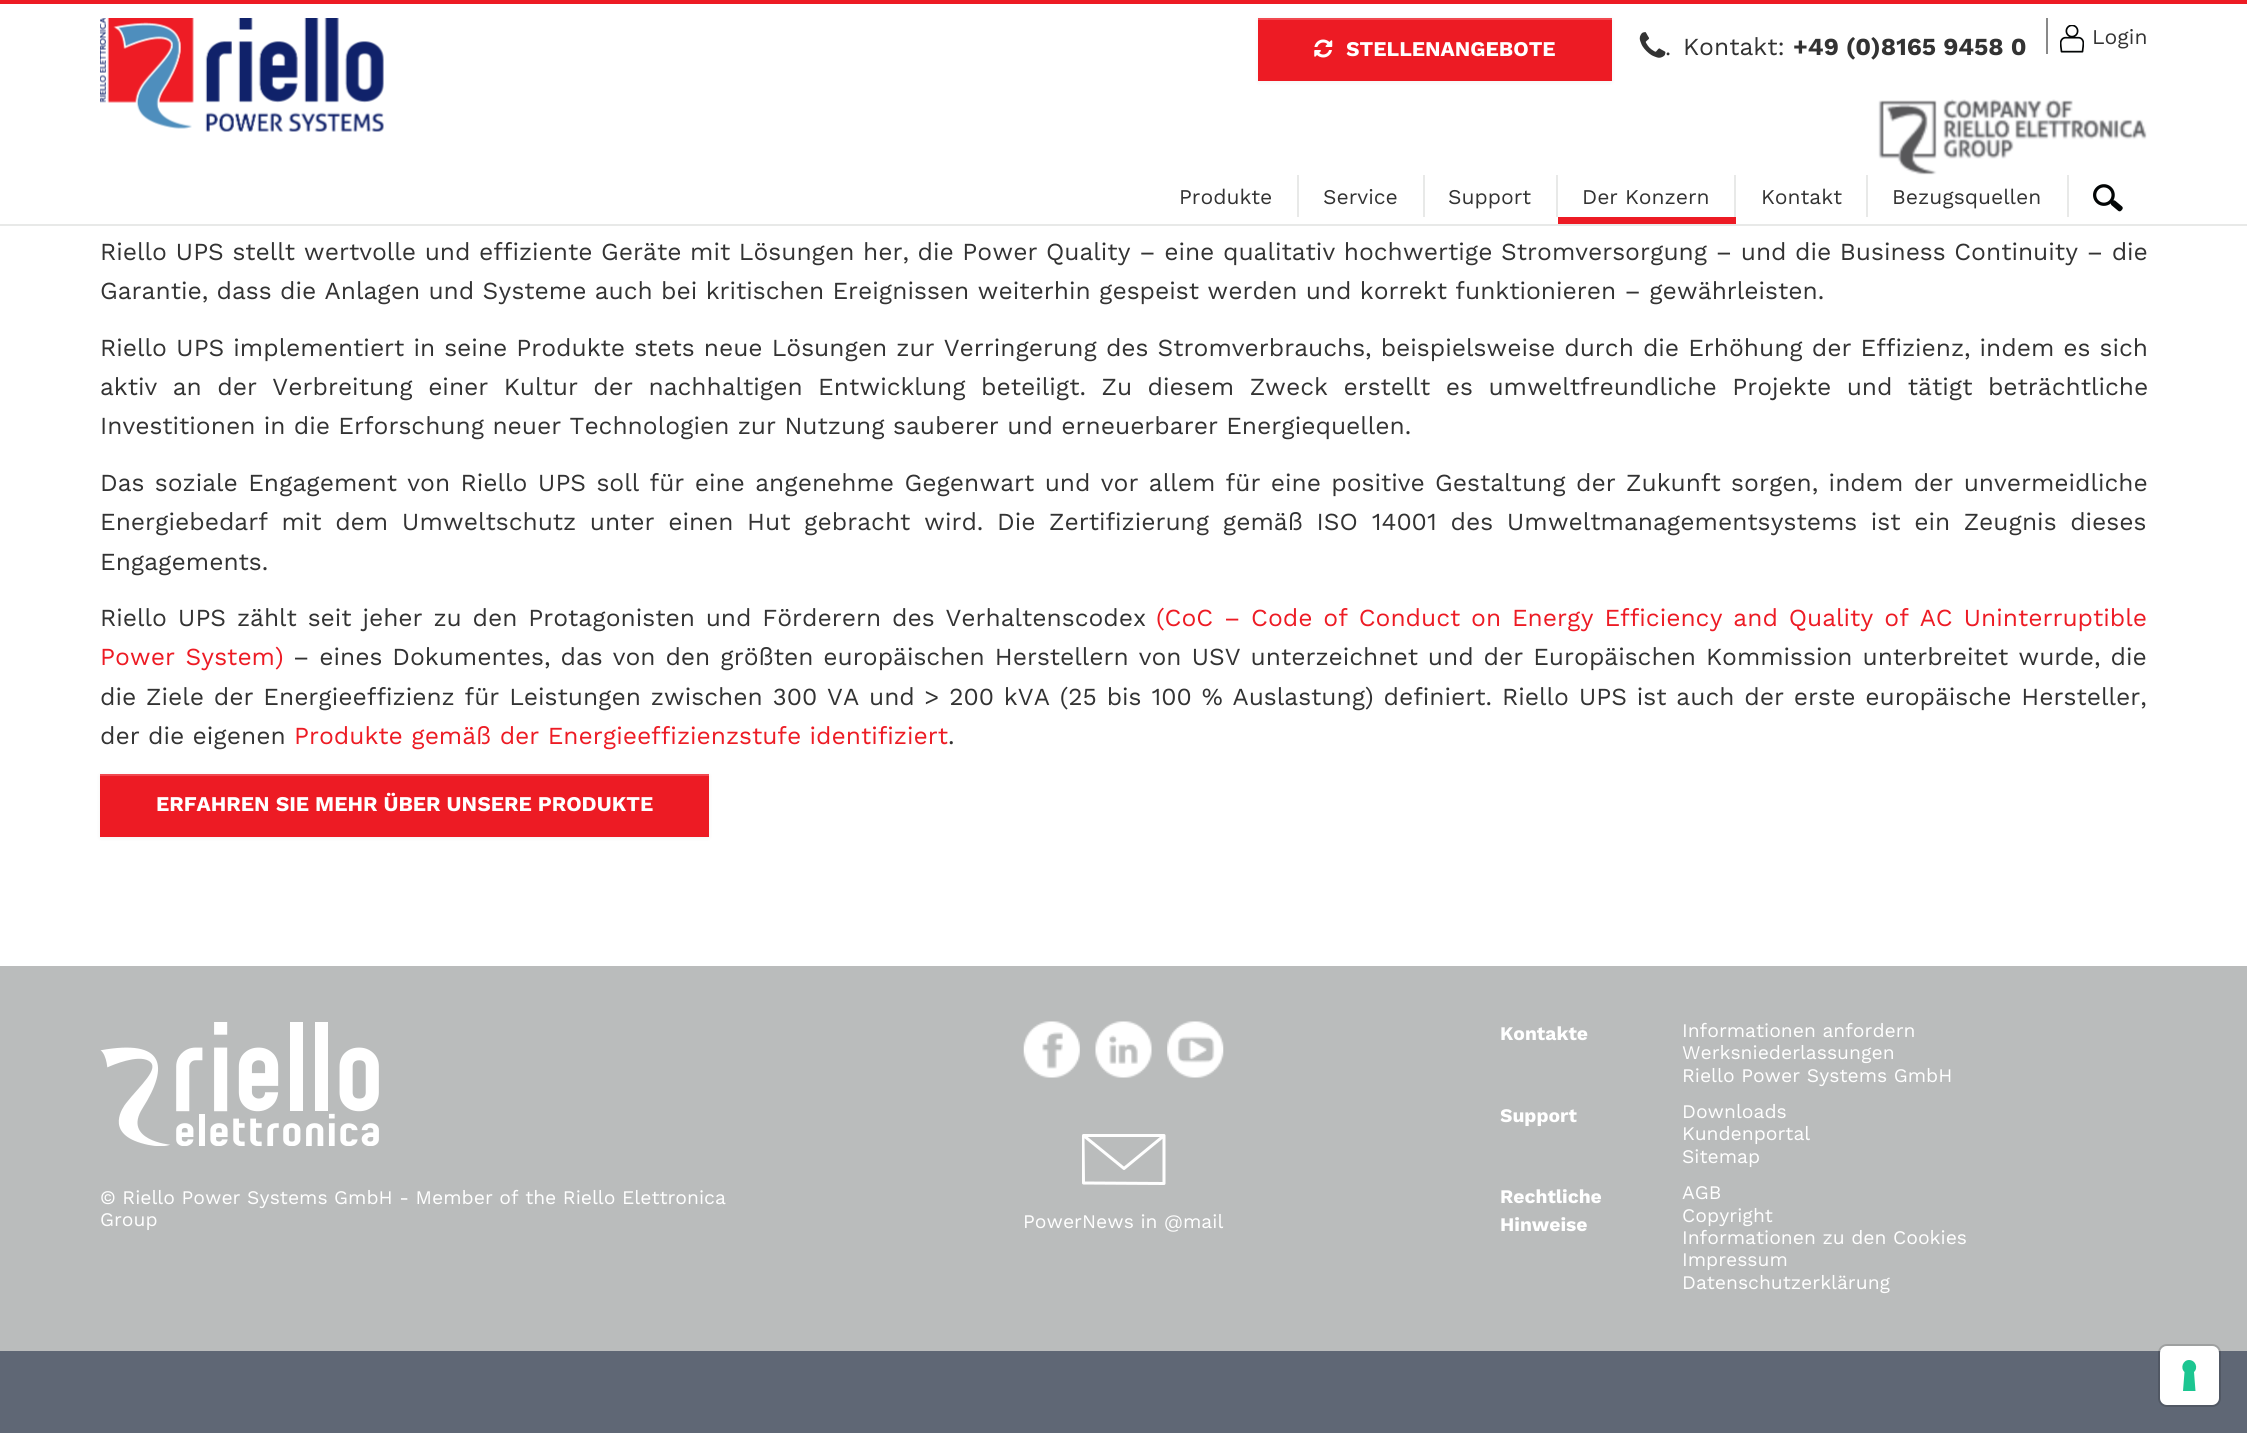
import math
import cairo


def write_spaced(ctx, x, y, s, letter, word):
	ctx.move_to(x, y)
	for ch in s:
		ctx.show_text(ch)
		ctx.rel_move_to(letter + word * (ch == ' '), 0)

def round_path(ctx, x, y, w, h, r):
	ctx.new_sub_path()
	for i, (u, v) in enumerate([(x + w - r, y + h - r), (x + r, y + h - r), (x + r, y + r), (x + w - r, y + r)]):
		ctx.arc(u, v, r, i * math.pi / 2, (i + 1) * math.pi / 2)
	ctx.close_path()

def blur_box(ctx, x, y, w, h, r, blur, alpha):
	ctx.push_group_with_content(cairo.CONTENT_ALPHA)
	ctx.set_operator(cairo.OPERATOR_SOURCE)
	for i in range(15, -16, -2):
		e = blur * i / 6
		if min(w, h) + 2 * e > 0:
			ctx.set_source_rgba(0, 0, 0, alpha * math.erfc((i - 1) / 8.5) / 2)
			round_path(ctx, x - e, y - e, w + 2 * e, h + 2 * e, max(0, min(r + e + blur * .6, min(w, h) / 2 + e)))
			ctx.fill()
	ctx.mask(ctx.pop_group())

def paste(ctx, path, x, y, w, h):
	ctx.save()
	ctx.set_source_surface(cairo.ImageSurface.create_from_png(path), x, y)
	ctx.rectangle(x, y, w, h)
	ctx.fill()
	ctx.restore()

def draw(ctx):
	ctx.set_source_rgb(1, 1, 1)
	ctx.paint()
	ctx.set_source_rgb(0.91, 0.914, 0.91)
	ctx.rectangle(0, 224, 2247, 2)
	ctx.fill()
	ctx.set_source_rgb(0.929, 0.106, 0.141)
	ctx.rectangle(0, 0, 2247, 4)
	ctx.fill()
	paste(ctx, 'media/1.png', 100, 18, 284, 114)
	ctx.set_source_rgb(0, 0, 0)
	blur_box(ctx, 1258, 19, 354, 63, 0, 2, 0.05)
	ctx.set_source_rgb(0.929, 0.106, 0.141)
	ctx.rectangle(1258, 20, 354, 61)
	ctx.fill()
	ctx.set_source_rgb(0.945, 0.286, 0.314)
	ctx.rectangle(1258, 18, 354, 2)
	ctx.fill()
	paste(ctx, 'media/2.png', 1314, 39, 19, 19)
	ctx.select_font_face('Work Sans', cairo.FONT_SLANT_NORMAL, cairo.FONT_WEIGHT_BOLD)
	ctx.set_font_size(21)
	ctx.set_source_rgb(1, 1, 1)
	ctx.move_to(1346, 56)
	ctx.show_text('STELLENANGEBOTE')
	paste(ctx, 'media/3.png', 1639, 32, 27, 26)
	ctx.select_font_face('Liberation Serif')
	ctx.set_font_size(24.5)
	ctx.set_source_rgb(0.2, 0.2, 0.2)
	ctx.move_to(1665, 55)
	ctx.show_text('.')
	ctx.select_font_face('Work Sans')
	ctx.move_to(1683, 55)
	ctx.show_text('Kontakt:')
	ctx.select_font_face('Work Sans', cairo.FONT_SLANT_NORMAL, cairo.FONT_WEIGHT_BOLD)
	ctx.move_to(1793, 55)
	ctx.show_text('+49 (0)8165 9458 0')
	ctx.set_source_rgb(0.537, 0.537, 0.537)
	ctx.rectangle(2046, 18, 2, 36)
	ctx.fill()
	paste(ctx, 'media/4.png', 2060, 25, 24, 28)
	ctx.select_font_face('Work Sans')
	ctx.set_font_size(21)
	ctx.set_source_rgb(0.2, 0.2, 0.2)
	ctx.move_to(2092, 44)
	ctx.show_text('Login')
	paste(ctx, 'media/5.png', 1878, 99, 269, 76)
	ctx.set_source_rgb(0.91, 0.914, 0.91)
	ctx.rectangle(1297, 175, 2, 42)
	ctx.fill()
	ctx.set_source_rgb(0.2, 0.2, 0.2)
	ctx.move_to(1179, 204)
	ctx.show_text('Produkte')
	ctx.set_source_rgb(0.91, 0.914, 0.91)
	ctx.rectangle(1423, 175, 2, 42)
	ctx.fill()
	ctx.set_source_rgb(0.2, 0.2, 0.2)
	ctx.move_to(1323, 204)
	ctx.show_text('Service')
	ctx.set_source_rgb(0.91, 0.914, 0.91)
	ctx.rectangle(1556, 175, 2, 42)
	ctx.fill()
	ctx.set_source_rgb(0.2, 0.2, 0.2)
	ctx.move_to(1448, 204)
	ctx.show_text('Support')
	ctx.set_source_rgb(0.929, 0.106, 0.141)
	ctx.rectangle(1558, 217, 178, 7)
	ctx.fill()
	ctx.set_source_rgb(0.91, 0.914, 0.91)
	ctx.rectangle(1734, 175, 2, 42)
	ctx.fill()
	ctx.set_source_rgb(0.2, 0.2, 0.2)
	ctx.move_to(1582, 204)
	ctx.show_text('Der Konzern')
	ctx.set_source_rgb(0.91, 0.914, 0.91)
	ctx.rectangle(1866, 175, 2, 42)
	ctx.fill()
	ctx.set_source_rgb(0.2, 0.2, 0.2)
	ctx.move_to(1761, 204)
	ctx.show_text('Kontakt')
	ctx.set_source_rgb(0.91, 0.914, 0.91)
	ctx.rectangle(2067, 175, 2, 42)
	ctx.fill()
	ctx.set_source_rgb(0.2, 0.2, 0.2)
	ctx.move_to(1892, 204)
	ctx.show_text('Bezugsquellen')
	paste(ctx, 'media/6.png', 2093, 184, 30, 28)
	ctx.set_font_size(24.5)
	write_spaced(ctx, 100, 260, 'Riello UPS stellt wertvolle und effiziente Geräte mit Lösungen her, die Power Quality – eine qualitativ hochwertige Stromversorgung – und die Business Continuity – die', 0, 0.25)
	ctx.move_to(100, 299)
	ctx.show_text('Garantie, dass die Anlagen und Systeme auch bei kritischen Ereignissen weiterhin gespeist werden und korrekt funktionieren – gewährleisten.')
	write_spaced(ctx, 100, 356, 'Riello UPS implementiert in seine Produkte stets neue Lösungen zur Verringerung des Stromverbrauchs, beispielsweise durch die Erhöhung der Effizienz, indem es sich', 0, 0.7)
	write_spaced(ctx, 100, 395, 'aktiv an der Verbreitung einer Kultur der nachhaltigen Entwicklung beteiligt. Zu diesem Zweck erstellt es umweltfreundliche Projekte und tätigt beträchtliche', 0, 7.1)
	ctx.move_to(100, 434)
	ctx.show_text('Investitionen in die Erforschung neuer Technologien zur Nutzung sauberer und erneuerbarer Energiequellen.')
	write_spaced(ctx, 100, 491, 'Das soziale Engagement von Riello UPS soll für eine angenehme Gegenwart und vor allem für eine positive Gestaltung der Zukunft sorgen, indem der unvermeidliche', 0, 2)
	write_spaced(ctx, 100, 530, 'Energiebedarf mit dem Umweltschutz unter einen Hut gebracht wird. Die Zertifizierung gemäß ISO 14001 des Umweltmanagementsystems ist ein Zeugnis dieses', 0, 5.25)
	ctx.move_to(100, 570)
	ctx.show_text('Engagements.')
	write_spaced(ctx, 100, 626, 'Riello UPS zählt seit jeher zu den Protagonisten und Förderern des Verhaltenscodex', 0, 2.5)
	ctx.set_source_rgb(0.929, 0.106, 0.141)
	write_spaced(ctx, 1156, 626, '(CoC – Code of Conduct on Energy Efficiency and Quality of AC Uninterruptible', 0, 2.5)
	write_spaced(ctx, 100, 665, 'Power System)', 0, 2)
	ctx.set_source_rgb(0.2, 0.2, 0.2)
	write_spaced(ctx, 293, 665, '– eines Dokumentes, das von den größten europäischen Herstellern von USV unterzeichnet und der Europäischen Kommission unterbreitet wurde, die', 0, 1.6)
	write_spaced(ctx, 100, 705, 'die Ziele der Energieeffizienz für Leistungen zwischen 300 VA und > 200 kVA (25 bis 100 % Auslastung) definiert. Riello UPS ist auch der erste europäische Hersteller,', 0, 1.5)
	ctx.move_to(100, 744)
	ctx.show_text('der die eigenen')
	ctx.set_source_rgb(0.929, 0.106, 0.141)
	ctx.move_to(294, 744)
	ctx.show_text('Produkte gemäß der Energieeffizienzstufe identifiziert')
	ctx.set_source_rgb(0.2, 0.2, 0.2)
	ctx.move_to(948, 744)
	ctx.show_text('.')
	ctx.set_source_rgb(0, 0, 0)
	blur_box(ctx, 100, 775, 609, 63, 0, 2, 0.05)
	ctx.set_source_rgb(0.929, 0.106, 0.141)
	ctx.rectangle(100, 776, 609, 61)
	ctx.fill()
	ctx.set_source_rgb(0.945, 0.286, 0.314)
	ctx.rectangle(100, 774, 609, 2)
	ctx.fill()
	ctx.select_font_face('Work Sans', cairo.FONT_SLANT_NORMAL, cairo.FONT_WEIGHT_BOLD)
	ctx.set_font_size(21)
	ctx.set_source_rgb(1, 1, 1)
	ctx.move_to(156, 811)
	ctx.show_text('ERFAHREN SIE MEHR ÜBER UNSERE PRODUKTE')
	ctx.set_source_rgb(0.729, 0.737, 0.737)
	ctx.rectangle(0, 966, 2247, 385)
	ctx.fill()
	paste(ctx, 'media/7.png', 100, 1022, 279, 124)
	ctx.select_font_face('Work Sans')
	ctx.set_font_size(19.25)
	ctx.set_source_rgb(1, 1, 1)
	ctx.move_to(100, 1204)
	ctx.show_text('© Riello Power Systems GmbH - Member of the Riello Elettronica')
	ctx.move_to(100, 1226)
	ctx.show_text('Group')
	paste(ctx, 'media/8.png', 1023, 1021, 57, 57)
	paste(ctx, 'media/9.png', 1095, 1021, 57, 57)
	paste(ctx, 'media/10.png', 1167, 1021, 57, 57)
	ctx.save()
	ctx.rectangle(1082, 1134, 84, 51)
	ctx.clip()
	ctx.new_path()
	ctx.move_to(1083, 1137)
	ctx.line_to(1083.5, 1183)
	ctx.line_to(1164, 1183.5)
	ctx.line_to(1164, 1135.5)
	ctx.line_to(1083.5, 1135.5)
	ctx.line_to(1124, 1168.5)
	ctx.line_to(1163.5, 1136)
	ctx.set_line_width(3)
	ctx.set_line_cap(cairo.LINE_CAP_ROUND)
	ctx.set_line_join(cairo.LINE_JOIN_ROUND)
	ctx.stroke()
	ctx.restore()
	ctx.move_to(1023, 1228)
	ctx.show_text('PowerNews in @mail')
	ctx.select_font_face('Work Sans', cairo.FONT_SLANT_NORMAL, cairo.FONT_WEIGHT_BOLD)
	ctx.move_to(1500, 1040)
	ctx.show_text('Kontakte')
	ctx.select_font_face('Work Sans')
	for x, y, s in [
		(1682, 1037, 'Informationen anfordern'),
		(1682, 1059, 'Werksniederlassungen'),
		(1682, 1082, 'Riello Power Systems GmbH'),
	]:
		ctx.move_to(x, y)
		ctx.show_text(s)
	ctx.select_font_face('Work Sans', cairo.FONT_SLANT_NORMAL, cairo.FONT_WEIGHT_BOLD)
	ctx.move_to(1500, 1122)
	ctx.show_text('Support')
	ctx.select_font_face('Work Sans')
	for x, y, s in [
		(1682, 1118, 'Downloads'),
		(1682, 1140, 'Kundenportal'),
		(1682, 1163, 'Sitemap'),
	]:
		ctx.move_to(x, y)
		ctx.show_text(s)
	ctx.select_font_face('Work Sans', cairo.FONT_SLANT_NORMAL, cairo.FONT_WEIGHT_BOLD)
	ctx.move_to(1500, 1203)
	ctx.show_text('Rechtliche')
	ctx.move_to(1500, 1231)
	ctx.show_text('Hinweise')
	ctx.select_font_face('Work Sans')
	for x, y, s in [
		(1682, 1199, 'AGB'),
		(1682, 1222, 'Copyright'),
		(1682, 1244, 'Informationen zu den Cookies'),
		(1682, 1266, 'Impressum'),
		(1682, 1289, 'Datenschutzerklärung'),
	]:
		ctx.move_to(x, y)
		ctx.show_text(s)
	ctx.set_source_rgb(0.373, 0.404, 0.459)
	ctx.rectangle(0, 1351, 2247, 82)
	ctx.fill()
	round_path(ctx, 2159, 1345, 61, 61, 8)
	ctx.set_source_rgba(0, 0, 0, 0.15)
	ctx.stroke()
	ctx.set_source_rgb(1, 1, 1)
	round_path(ctx, 2160, 1346, 59, 59, 7)
	ctx.fill()
	ctx.set_source_rgb(0.11, 0.776, 0.569)
	ctx.set_fill_rule(cairo.FILL_RULE_EVEN_ODD)
	ctx.new_path()
	ctx.move_to(2189, 1360)
	ctx.curve_to(2195.5, 1360, 2198.5, 1368, 2194, 1372)
	ctx.line_to(2195.5, 1391)
	ctx.line_to(2183, 1391)
	ctx.line_to(2184.5, 1372)
	ctx.curve_to(2180, 1368, 2183, 1360, 2189, 1360)
	ctx.close_path()
	ctx.fill()


surface = cairo.ImageSurface(cairo.FORMAT_RGB24, 2247, 1433)
ctx = cairo.Context(surface)
options = cairo.FontOptions()
options.set_hint_metrics(cairo.HINT_METRICS_OFF)
options.set_hint_style(cairo.HINT_STYLE_NONE)
ctx.set_font_options(options)
ctx.set_miter_limit(4)
draw(ctx)
surface.write_to_png('image.png')
